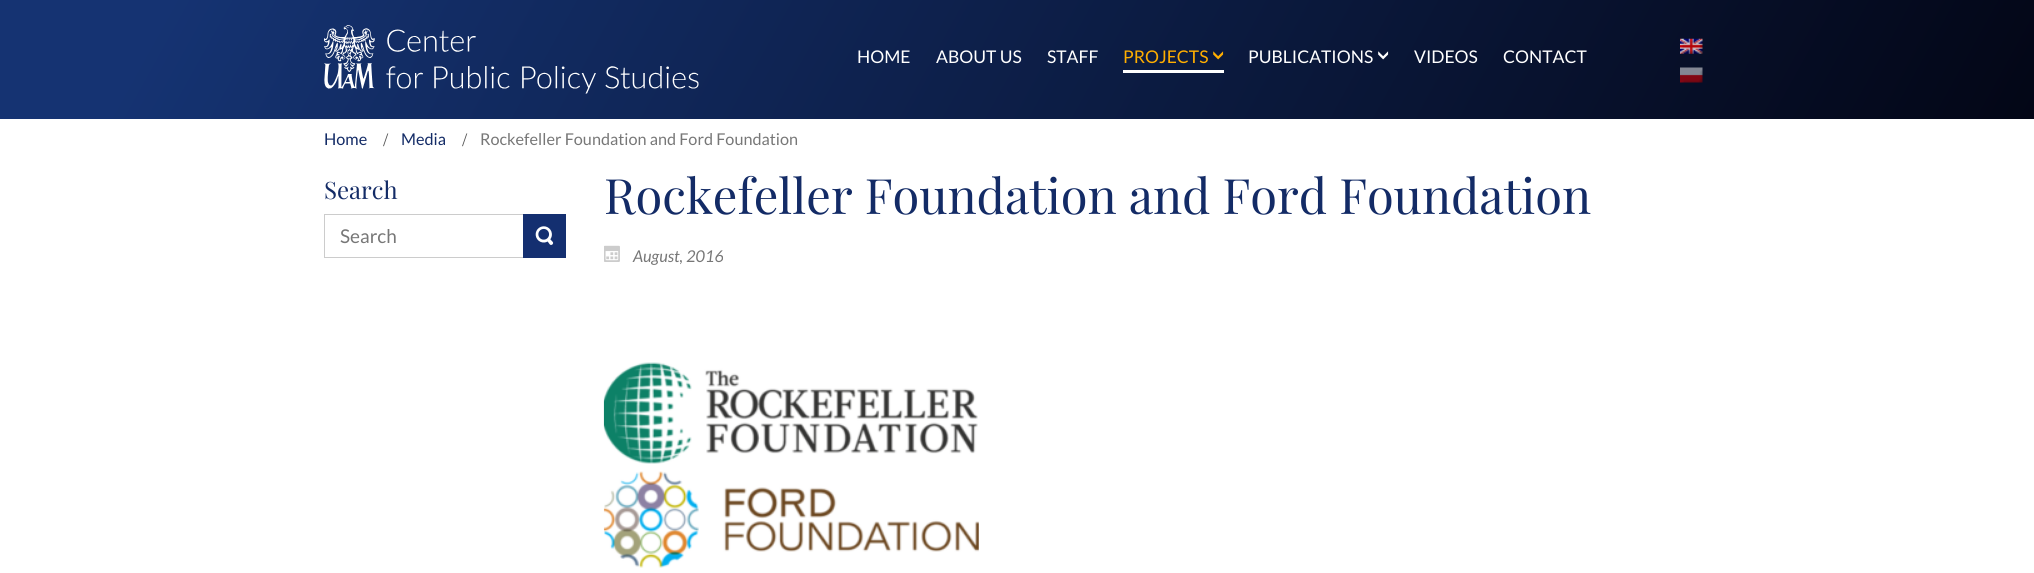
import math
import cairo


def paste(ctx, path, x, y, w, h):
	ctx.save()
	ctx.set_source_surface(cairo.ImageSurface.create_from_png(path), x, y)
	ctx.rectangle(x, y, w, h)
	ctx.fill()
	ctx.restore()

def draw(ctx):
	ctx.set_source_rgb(1, 1, 1)
	ctx.paint()
	gradient = cairo.LinearGradient(1821, 505, 214, -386)
	gradient.add_color_stop_rgba(0, 0.012, 0.024, 0.086, 1)
	gradient.add_color_stop_rgba(0.92, 0.082, 0.2, 0.447, 1)
	ctx.set_source(gradient)
	ctx.rectangle(0, 0, 2034, 119)
	ctx.fill()
	paste(ctx, 'media/1.png', 324, 25, 375, 69)
	ctx.select_font_face('Lato')
	ctx.set_font_size(17.5)
	ctx.set_source_rgb(1, 1, 1)
	for x, y, s in [
		(857, 63, 'HOME'),
		(936, 63, 'ABOUT US'),
		(1047, 63, 'STAFF'),
	]:
		ctx.move_to(x, y)
		ctx.show_text(s)
	ctx.rectangle(1123, 70, 101, 3)
	ctx.fill()
	ctx.set_source_rgb(1, 0.682, 0)
	ctx.move_to(1123, 63)
	ctx.show_text('PROJECTS')
	paste(ctx, 'media/2.png', 1213, 51, 11, 9)
	ctx.set_source_rgb(1, 1, 1)
	ctx.move_to(1248, 63)
	ctx.show_text('PUBLICATIONS')
	paste(ctx, 'media/3.png', 1378, 51, 11, 9)
	ctx.move_to(1414, 63)
	ctx.show_text('VIDEOS')
	ctx.move_to(1503, 63)
	ctx.show_text('CONTACT')
	paste(ctx, 'media/4.png', 1680, 38, 23, 16)
	paste(ctx, 'media/5.png', 1680, 67, 23, 16)
	ctx.set_font_size(16.25)
	ctx.set_source_rgb(0.075, 0.169, 0.4)
	ctx.move_to(324, 145)
	ctx.show_text('Home')
	ctx.select_font_face('Liberation Serif')
	ctx.set_font_size(19)
	ctx.set_source_rgb(0.333, 0.333, 0.333)
	ctx.move_to(383, 146)
	ctx.show_text('/')
	ctx.select_font_face('Lato')
	ctx.set_font_size(16.25)
	ctx.set_source_rgb(0.075, 0.169, 0.4)
	ctx.move_to(401, 145)
	ctx.show_text('Media')
	ctx.select_font_face('Liberation Serif')
	ctx.set_font_size(19)
	ctx.set_source_rgb(0.333, 0.333, 0.333)
	ctx.move_to(462, 146)
	ctx.show_text('/')
	ctx.select_font_face('Lato')
	ctx.set_font_size(16.25)
	ctx.set_source_rgb(0.467, 0.467, 0.467)
	ctx.move_to(480, 145)
	ctx.show_text('Rockefeller Foundation and Ford Foundation')
	ctx.select_font_face('Playfair Display')
	ctx.set_font_size(24)
	ctx.set_source_rgb(0.075, 0.169, 0.4)
	ctx.move_to(324, 199)
	ctx.show_text('Search')
	ctx.rectangle(324.5, 214.5, 241, 43)
	ctx.set_source_rgb(0.8, 0.8, 0.8)
	ctx.set_line_width(1)
	ctx.stroke()
	ctx.select_font_face('Lato')
	ctx.set_font_size(19)
	ctx.set_source_rgb(0.467, 0.467, 0.467)
	ctx.move_to(340, 243)
	ctx.show_text('Search')
	ctx.set_source_rgb(0.082, 0.184, 0.439)
	ctx.rectangle(523, 214, 43, 44)
	ctx.fill()
	paste(ctx, 'media/6.png', 535, 226, 19, 19)
	ctx.select_font_face('Playfair Display')
	ctx.set_font_size(48.75)
	ctx.set_source_rgb(0.075, 0.169, 0.4)
	ctx.move_to(604, 214)
	ctx.show_text('Rockefeller Foundation and Ford Foundation')
	paste(ctx, 'media/7.png', 604, 245, 16, 17)
	ctx.select_font_face('Lato', cairo.FONT_SLANT_ITALIC)
	ctx.set_font_size(16.25)
	ctx.set_source_rgb(0.467, 0.467, 0.467)
	ctx.move_to(633, 262)
	ctx.show_text('August, 2016')
	paste(ctx, 'media/8.png', 603, 362, 376, 206)


surface = cairo.ImageSurface(cairo.FORMAT_RGB24, 2034, 573)
ctx = cairo.Context(surface)
options = cairo.FontOptions()
options.set_hint_metrics(cairo.HINT_METRICS_OFF)
options.set_hint_style(cairo.HINT_STYLE_NONE)
ctx.set_font_options(options)
ctx.set_miter_limit(4)
draw(ctx)
surface.write_to_png('image.png')
